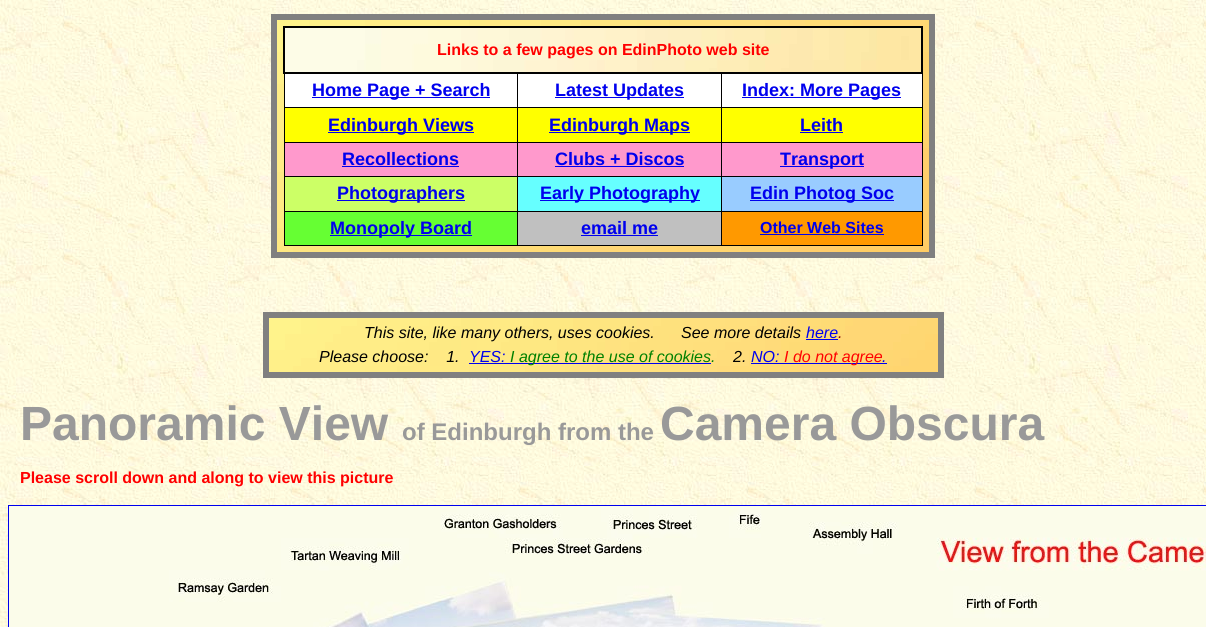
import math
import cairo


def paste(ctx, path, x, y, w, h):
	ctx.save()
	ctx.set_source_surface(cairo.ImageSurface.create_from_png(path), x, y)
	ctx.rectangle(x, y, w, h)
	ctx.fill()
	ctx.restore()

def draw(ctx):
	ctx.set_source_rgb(1, 1, 1)
	ctx.paint()
	paste(ctx, 'media/1.png', 0, 0, 1206, 627)
	ctx.set_source_rgb(0.502, 0.502, 0.502)
	ctx.rectangle(271, 14, 664, 6)
	ctx.rectangle(929, 14, 6, 244)
	ctx.rectangle(271, 252, 664, 6)
	ctx.rectangle(271, 14, 6, 244)
	ctx.fill()
	paste(ctx, 'media/2.png', 277, 20, 652, 232)
	paste(ctx, 'media/3.png', 285, 28, 636, 44)
	ctx.set_source_rgb(0, 0, 0)
	ctx.rectangle(283, 26, 640, 2)
	ctx.rectangle(721, 107, 202, 1)
	ctx.rectangle(721, 142, 202, 1)
	ctx.rectangle(721, 176, 202, 1)
	ctx.rectangle(721, 211, 202, 1)
	ctx.rectangle(922, 211, 1, 35)
	ctx.rectangle(922, 176, 1, 36)
	ctx.rectangle(922, 142, 1, 35)
	ctx.rectangle(922, 72, 1, 71)
	ctx.rectangle(921, 26, 2, 48)
	ctx.rectangle(721, 245, 202, 1)
	ctx.rectangle(721, 211, 1, 35)
	ctx.rectangle(517, 211, 205, 1)
	ctx.rectangle(721, 176, 1, 36)
	ctx.rectangle(517, 176, 205, 1)
	ctx.rectangle(721, 142, 1, 35)
	ctx.rectangle(517, 142, 205, 1)
	ctx.rectangle(721, 107, 1, 36)
	ctx.rectangle(517, 107, 205, 1)
	ctx.rectangle(517, 245, 205, 1)
	ctx.rectangle(517, 211, 1, 35)
	ctx.rectangle(284, 211, 234, 1)
	ctx.rectangle(517, 176, 1, 36)
	ctx.rectangle(284, 176, 234, 1)
	ctx.rectangle(517, 142, 1, 35)
	ctx.rectangle(284, 142, 234, 1)
	ctx.rectangle(517, 107, 1, 36)
	ctx.rectangle(284, 107, 234, 1)
	ctx.rectangle(517, 72, 1, 36)
	ctx.rectangle(721, 72, 1, 36)
	ctx.rectangle(284, 245, 234, 1)
	ctx.rectangle(284, 211, 1, 35)
	ctx.rectangle(284, 176, 1, 36)
	ctx.rectangle(284, 142, 1, 35)
	ctx.rectangle(284, 72, 1, 71)
	ctx.rectangle(283, 72, 640, 2)
	ctx.rectangle(283, 26, 2, 48)
	ctx.fill()
	ctx.select_font_face('Liberation Sans', cairo.FONT_SLANT_NORMAL, cairo.FONT_WEIGHT_BOLD)
	ctx.set_font_size(16)
	ctx.set_source_rgb(1, 0, 0)
	ctx.move_to(437, 55)
	ctx.show_text('Links to a few pages on EdinPhoto web site')
	ctx.set_source_rgb(1, 1, 1)
	ctx.rectangle(285, 74, 232, 33)
	ctx.fill()
	ctx.set_source_rgb(0, 0, 0.933)
	ctx.rectangle(312, 97, 178, 1)
	ctx.fill()
	ctx.set_font_size(18)
	ctx.move_to(312, 96)
	ctx.show_text('Home Page + Search')
	ctx.set_source_rgb(1, 1, 1)
	ctx.rectangle(518, 74, 203, 33)
	ctx.fill()
	ctx.set_source_rgb(0, 0, 0.933)
	ctx.rectangle(555, 97, 129, 1)
	ctx.fill()
	ctx.move_to(555, 96)
	ctx.show_text('Latest Updates')
	ctx.set_source_rgb(1, 1, 1)
	ctx.rectangle(722, 74, 200, 33)
	ctx.fill()
	ctx.set_source_rgb(0, 0, 0.933)
	ctx.rectangle(742, 97, 159, 1)
	ctx.fill()
	ctx.move_to(742, 96)
	ctx.show_text('Index: More Pages')
	ctx.set_source_rgb(1, 1, 0)
	ctx.rectangle(285, 108, 232, 34)
	ctx.fill()
	ctx.set_source_rgb(0, 0, 0.933)
	ctx.rectangle(328, 132, 146, 1)
	ctx.fill()
	ctx.move_to(328, 131)
	ctx.show_text('Edinburgh Views')
	ctx.set_source_rgb(1, 1, 0)
	ctx.rectangle(518, 108, 203, 34)
	ctx.fill()
	ctx.set_source_rgb(0, 0, 0.933)
	ctx.rectangle(549, 132, 141, 1)
	ctx.fill()
	ctx.move_to(549, 131)
	ctx.show_text('Edinburgh Maps')
	ctx.set_source_rgb(1, 1, 0)
	ctx.rectangle(722, 108, 200, 34)
	ctx.fill()
	ctx.set_source_rgb(0, 0, 0.933)
	ctx.move_to(800, 131)
	ctx.show_text('Leith')
	ctx.rectangle(800, 132, 43, 1)
	ctx.fill()
	ctx.set_source_rgb(1, 0.6, 0.8)
	ctx.rectangle(285, 143, 232, 33)
	ctx.fill()
	ctx.set_source_rgb(0, 0, 0.933)
	ctx.move_to(342, 165)
	ctx.show_text('Recollections')
	ctx.rectangle(342, 166, 117, 1)
	ctx.fill()
	ctx.set_source_rgb(1, 0.6, 0.8)
	ctx.rectangle(518, 143, 203, 33)
	ctx.fill()
	ctx.set_source_rgb(0, 0, 0.933)
	ctx.move_to(555, 165)
	ctx.show_text('Clubs + Discos')
	ctx.rectangle(555, 166, 129, 1)
	ctx.fill()
	ctx.set_source_rgb(1, 0.6, 0.8)
	ctx.rectangle(722, 143, 200, 33)
	ctx.fill()
	ctx.set_source_rgb(0, 0, 0.933)
	ctx.rectangle(780, 166, 84, 1)
	ctx.fill()
	ctx.move_to(780, 165)
	ctx.show_text('Transport')
	ctx.set_source_rgb(0.8, 1, 0.4)
	ctx.rectangle(285, 177, 232, 34)
	ctx.fill()
	ctx.set_source_rgb(0, 0, 0.933)
	ctx.rectangle(337, 200, 128, 1)
	ctx.fill()
	ctx.move_to(337, 199)
	ctx.show_text('Photographers')
	ctx.set_source_rgb(0.4, 1, 1)
	ctx.rectangle(518, 177, 203, 34)
	ctx.fill()
	ctx.set_source_rgb(0, 0, 0.933)
	ctx.rectangle(540, 200, 160, 1)
	ctx.fill()
	ctx.move_to(540, 199)
	ctx.show_text('Early Photography')
	ctx.set_source_rgb(0.6, 0.8, 1)
	ctx.rectangle(722, 177, 200, 34)
	ctx.fill()
	ctx.set_source_rgb(0, 0, 0.933)
	ctx.rectangle(750, 200, 144, 1)
	ctx.fill()
	ctx.move_to(750, 199)
	ctx.show_text('Edin Photog Soc')
	ctx.set_source_rgb(0.4, 1, 0.2)
	ctx.rectangle(285, 212, 232, 33)
	ctx.fill()
	ctx.set_source_rgb(0, 0, 0.933)
	ctx.rectangle(330, 235, 142, 1)
	ctx.fill()
	ctx.move_to(330, 234)
	ctx.show_text('Monopoly Board')
	ctx.set_source_rgb(0.753, 0.753, 0.753)
	ctx.rectangle(518, 212, 203, 33)
	ctx.fill()
	ctx.set_source_rgb(0, 0, 0.933)
	ctx.move_to(581, 234)
	ctx.show_text('email me')
	ctx.rectangle(581, 235, 77, 1)
	ctx.fill()
	ctx.set_source_rgb(1, 0.6, 0)
	ctx.rectangle(722, 212, 200, 33)
	ctx.fill()
	ctx.set_font_size(16)
	ctx.set_source_rgb(0, 0, 0.933)
	ctx.move_to(760, 233)
	ctx.show_text('Other Web Sites')
	ctx.rectangle(760, 234, 124, 1)
	ctx.fill()
	ctx.set_source_rgb(0.502, 0.502, 0.502)
	ctx.rectangle(263, 312, 681, 6)
	ctx.rectangle(938, 312, 6, 66)
	ctx.rectangle(263, 372, 681, 6)
	ctx.rectangle(263, 312, 6, 66)
	ctx.fill()
	paste(ctx, 'media/4.png', 269, 318, 669, 54)
	ctx.select_font_face('Liberation Sans', cairo.FONT_SLANT_ITALIC)
	ctx.set_source_rgb(0, 0, 0)
	ctx.move_to(364, 338)
	ctx.show_text('This site, like many others, uses cookies.')
	ctx.move_to(681, 338)
	ctx.show_text('See more details')
	ctx.set_source_rgb(0, 0, 0.933)
	ctx.move_to(806, 338)
	ctx.show_text('here')
	ctx.set_source_rgb(0.502, 0, 0)
	ctx.move_to(838, 338)
	ctx.show_text('.')
	ctx.set_source_rgb(0, 0, 0.933)
	ctx.rectangle(806, 339, 32, 1)
	ctx.fill()
	ctx.set_source_rgb(0, 0, 0)
	ctx.move_to(319, 362)
	ctx.show_text('Please choose:    1.')
	ctx.set_source_rgb(0, 0, 0.933)
	ctx.move_to(469, 362)
	ctx.show_text('YES:')
	ctx.rectangle(469, 363, 242, 1)
	ctx.fill()
	ctx.set_source_rgb(0, 0.502, 0)
	ctx.move_to(510, 362)
	ctx.show_text('I agree to the use of cookies.')
	ctx.set_source_rgb(0, 0, 0)
	ctx.move_to(733, 362)
	ctx.show_text('2.')
	ctx.set_source_rgb(0, 0, 0.933)
	ctx.move_to(751, 362)
	ctx.show_text('NO:')
	ctx.rectangle(751, 363, 136, 1)
	ctx.fill()
	ctx.set_source_rgb(1, 0, 0)
	ctx.move_to(784, 362)
	ctx.show_text('I do not agree')
	ctx.set_source_rgb(0, 0, 0.933)
	ctx.move_to(882, 362)
	ctx.show_text('.')
	ctx.select_font_face('Liberation Sans', cairo.FONT_SLANT_NORMAL, cairo.FONT_WEIGHT_BOLD)
	ctx.set_font_size(48)
	ctx.set_source_rgb(0.6, 0.6, 0.6)
	ctx.move_to(20, 440)
	ctx.show_text('Panoramic View')
	ctx.set_font_size(24)
	ctx.move_to(402, 440)
	ctx.show_text('of Edinburgh from the')
	ctx.set_font_size(48)
	ctx.move_to(660, 440)
	ctx.show_text('Camera Obscura')
	ctx.set_font_size(16)
	ctx.set_source_rgb(1, 0, 0)
	ctx.move_to(20, 483)
	ctx.show_text('Please scroll down and along to view this picture')
	ctx.rectangle(8.5, 505.5, 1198, 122)
	ctx.set_source_rgb(0, 0, 0.933)
	ctx.set_line_width(1)
	ctx.stroke()
	paste(ctx, 'media/5.png', 9, 506, 1197, 121)


surface = cairo.ImageSurface(cairo.FORMAT_RGB24, 1206, 627)
ctx = cairo.Context(surface)
options = cairo.FontOptions()
options.set_hint_metrics(cairo.HINT_METRICS_OFF)
options.set_hint_style(cairo.HINT_STYLE_NONE)
ctx.set_font_options(options)
ctx.set_miter_limit(4)
draw(ctx)
surface.write_to_png('image.png')
